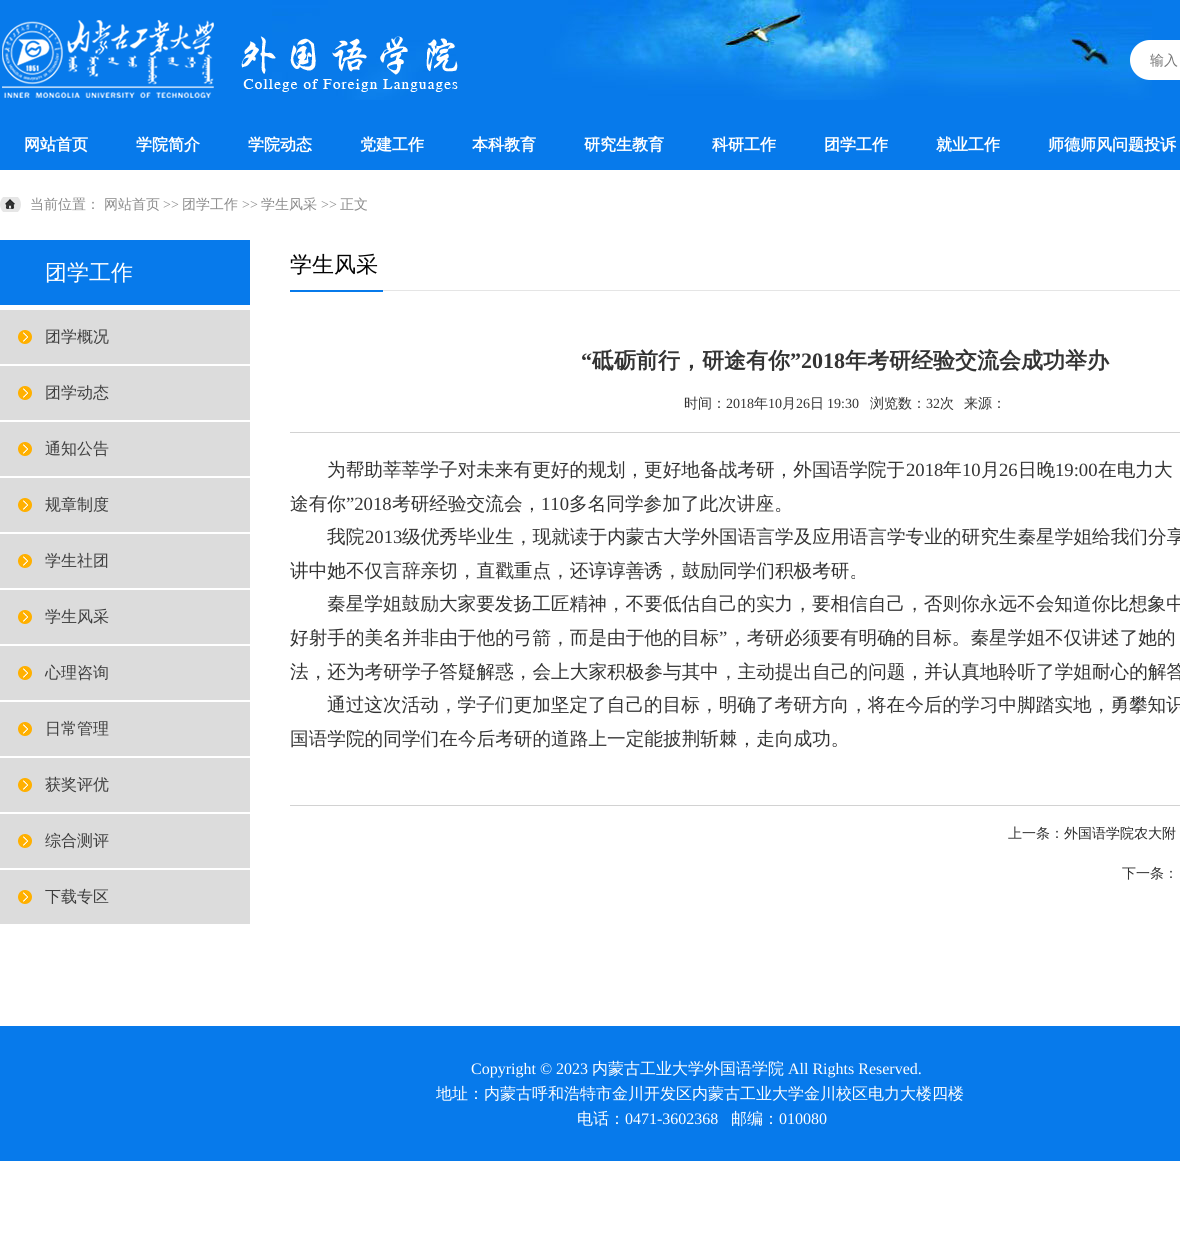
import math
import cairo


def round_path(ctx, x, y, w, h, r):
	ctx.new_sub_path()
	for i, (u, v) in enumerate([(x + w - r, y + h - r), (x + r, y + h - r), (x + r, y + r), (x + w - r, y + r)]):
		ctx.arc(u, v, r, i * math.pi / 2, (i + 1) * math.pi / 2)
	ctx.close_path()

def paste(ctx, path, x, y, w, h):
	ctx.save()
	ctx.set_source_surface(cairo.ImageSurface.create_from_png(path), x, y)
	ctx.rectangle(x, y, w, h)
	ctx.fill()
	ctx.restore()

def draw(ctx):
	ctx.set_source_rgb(1, 1, 1)
	ctx.paint()
	ctx.set_source_rgb(0.031, 0.478, 0.918)
	ctx.rectangle(0, 0, 1180, 170)
	ctx.fill()
	paste(ctx, 'media/1.png', 272, 0, 880, 100)
	paste(ctx, 'media/2.png', 2, 20, 456, 78)
	ctx.set_source_rgb(1, 1, 1)
	round_path(ctx, 1130, 40, 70, 40, 20)
	ctx.fill()
	ctx.select_font_face('WenQuanYi Zen Hei Medium')
	ctx.set_font_size(14)
	ctx.set_source_rgb(0.459, 0.459, 0.459)
	ctx.move_to(1150, 65)
	ctx.show_text('输入')
	ctx.select_font_face('WenQuanYi Zen Hei', cairo.FONT_SLANT_NORMAL, cairo.FONT_WEIGHT_BOLD)
	ctx.set_font_size(16)
	ctx.set_source_rgb(1, 1, 1)
	for x, y, s in [
		(24, 150, '网站首页'),
		(136, 150, '学院简介'),
		(248, 150, '学院动态'),
		(360, 150, '党建工作'),
		(472, 150, '本科教育'),
		(584, 150, '研究生教育'),
		(712, 150, '科研工作'),
		(824, 150, '团学工作'),
		(936, 150, '就业工作'),
		(1048, 150, '师德师风问题投诉'),
	]:
		ctx.move_to(x, y)
		ctx.show_text(s)
	paste(ctx, 'media/3.png', 0, 197, 21, 15)
	ctx.select_font_face('WenQuanYi Zen Hei Medium')
	ctx.set_font_size(14)
	ctx.set_source_rgb(0.545, 0.545, 0.545)
	ctx.move_to(30, 209)
	ctx.show_text('当前位置：')
	ctx.move_to(104, 209)
	ctx.show_text('网站首页')
	ctx.select_font_face('Liberation Serif')
	ctx.move_to(163, 209)
	ctx.show_text('>>')
	ctx.select_font_face('WenQuanYi Zen Hei Medium')
	ctx.move_to(182, 209)
	ctx.show_text('团学工作')
	ctx.select_font_face('Liberation Serif')
	ctx.move_to(242, 209)
	ctx.show_text('>>')
	ctx.select_font_face('WenQuanYi Zen Hei Medium')
	ctx.move_to(261, 209)
	ctx.show_text('学生风采')
	ctx.select_font_face('Liberation Serif')
	ctx.move_to(321, 209)
	ctx.show_text('>>')
	ctx.select_font_face('WenQuanYi Zen Hei Medium')
	ctx.move_to(340, 209)
	ctx.show_text('正文')
	ctx.set_source_rgb(0.031, 0.478, 0.918)
	ctx.rectangle(0, 240, 250, 65)
	ctx.fill()
	ctx.set_font_size(22)
	ctx.set_source_rgb(1, 1, 1)
	ctx.move_to(45, 280)
	ctx.show_text('团学工作')
	ctx.set_source_rgb(0.863, 0.863, 0.863)
	ctx.rectangle(0, 310, 250, 614)
	ctx.fill()
	paste(ctx, 'media/4.png', 18, 330, 14, 14)
	ctx.set_source_rgb(1, 1, 1)
	ctx.rectangle(0, 364, 250, 2)
	ctx.fill()
	ctx.set_font_size(16)
	ctx.set_source_rgb(0.243, 0.243, 0.243)
	ctx.move_to(45, 342)
	ctx.show_text('团学概况')
	paste(ctx, 'media/4.png', 18, 386, 14, 14)
	ctx.set_source_rgb(1, 1, 1)
	ctx.rectangle(0, 420, 250, 2)
	ctx.fill()
	ctx.set_source_rgb(0.243, 0.243, 0.243)
	ctx.move_to(45, 398)
	ctx.show_text('团学动态')
	paste(ctx, 'media/4.png', 18, 442, 14, 14)
	ctx.set_source_rgb(1, 1, 1)
	ctx.rectangle(0, 476, 250, 2)
	ctx.fill()
	ctx.set_source_rgb(0.243, 0.243, 0.243)
	ctx.move_to(45, 454)
	ctx.show_text('通知公告')
	paste(ctx, 'media/4.png', 18, 498, 14, 14)
	ctx.set_source_rgb(1, 1, 1)
	ctx.rectangle(0, 532, 250, 2)
	ctx.fill()
	ctx.set_source_rgb(0.243, 0.243, 0.243)
	ctx.move_to(45, 510)
	ctx.show_text('规章制度')
	paste(ctx, 'media/4.png', 18, 554, 14, 14)
	ctx.set_source_rgb(1, 1, 1)
	ctx.rectangle(0, 588, 250, 2)
	ctx.fill()
	ctx.set_source_rgb(0.243, 0.243, 0.243)
	ctx.move_to(45, 566)
	ctx.show_text('学生社团')
	paste(ctx, 'media/4.png', 18, 610, 14, 14)
	ctx.set_source_rgb(1, 1, 1)
	ctx.rectangle(0, 644, 250, 2)
	ctx.fill()
	ctx.set_source_rgb(0.243, 0.243, 0.243)
	ctx.move_to(45, 622)
	ctx.show_text('学生风采')
	paste(ctx, 'media/4.png', 18, 666, 14, 14)
	ctx.set_source_rgb(1, 1, 1)
	ctx.rectangle(0, 700, 250, 2)
	ctx.fill()
	ctx.set_source_rgb(0.243, 0.243, 0.243)
	ctx.move_to(45, 678)
	ctx.show_text('心理咨询')
	paste(ctx, 'media/4.png', 18, 722, 14, 14)
	ctx.set_source_rgb(1, 1, 1)
	ctx.rectangle(0, 756, 250, 2)
	ctx.fill()
	ctx.set_source_rgb(0.243, 0.243, 0.243)
	ctx.move_to(45, 734)
	ctx.show_text('日常管理')
	paste(ctx, 'media/4.png', 18, 778, 14, 14)
	ctx.set_source_rgb(1, 1, 1)
	ctx.rectangle(0, 812, 250, 2)
	ctx.fill()
	ctx.set_source_rgb(0.243, 0.243, 0.243)
	ctx.move_to(45, 790)
	ctx.show_text('获奖评优')
	paste(ctx, 'media/4.png', 18, 834, 14, 14)
	ctx.set_source_rgb(1, 1, 1)
	ctx.rectangle(0, 868, 250, 2)
	ctx.fill()
	ctx.set_source_rgb(0.243, 0.243, 0.243)
	ctx.move_to(45, 846)
	ctx.show_text('综合测评')
	paste(ctx, 'media/4.png', 18, 890, 14, 14)
	ctx.move_to(45, 902)
	ctx.show_text('下载专区')
	ctx.set_source_rgb(0.898, 0.898, 0.898)
	ctx.rectangle(383, 290, 797, 1)
	ctx.fill()
	ctx.set_source_rgb(0.031, 0.478, 0.918)
	ctx.rectangle(290, 290, 93, 2)
	ctx.fill()
	ctx.set_font_size(22)
	ctx.set_source_rgb(0.012, 0.012, 0.012)
	ctx.move_to(290, 272)
	ctx.show_text('学生风采')
	ctx.set_source_rgb(0.824, 0.824, 0.824)
	ctx.rectangle(290, 805, 890, 1)
	ctx.fill()
	ctx.select_font_face('Liberation Serif', cairo.FONT_SLANT_NORMAL, cairo.FONT_WEIGHT_BOLD)
	ctx.set_source_rgb(0.2, 0.2, 0.2)
	ctx.move_to(581, 368)
	ctx.show_text('“')
	ctx.select_font_face('WenQuanYi Zen Hei', cairo.FONT_SLANT_NORMAL, cairo.FONT_WEIGHT_BOLD)
	ctx.move_to(592, 368)
	ctx.show_text('砥砺前行，研途有你')
	ctx.select_font_face('Liberation Serif', cairo.FONT_SLANT_NORMAL, cairo.FONT_WEIGHT_BOLD)
	ctx.move_to(790, 368)
	ctx.show_text('”2018')
	ctx.select_font_face('WenQuanYi Zen Hei', cairo.FONT_SLANT_NORMAL, cairo.FONT_WEIGHT_BOLD)
	ctx.move_to(845, 368)
	ctx.show_text('年考研经验交流会成功举办')
	ctx.set_source_rgb(0.824, 0.824, 0.824)
	ctx.rectangle(290, 432, 890, 1)
	ctx.fill()
	ctx.select_font_face('WenQuanYi Zen Hei Medium')
	ctx.set_font_size(14)
	ctx.set_source_rgb(0.2, 0.2, 0.2)
	ctx.move_to(684, 408)
	ctx.show_text('时间：')
	ctx.select_font_face('Liberation Serif')
	ctx.move_to(726, 408)
	ctx.show_text('2018')
	ctx.select_font_face('WenQuanYi Zen Hei Medium')
	ctx.move_to(754, 408)
	ctx.show_text('年')
	ctx.select_font_face('Liberation Serif')
	ctx.move_to(768, 408)
	ctx.show_text('10')
	ctx.select_font_face('WenQuanYi Zen Hei Medium')
	ctx.move_to(782, 408)
	ctx.show_text('月')
	ctx.select_font_face('Liberation Serif')
	ctx.move_to(796, 408)
	ctx.show_text('26')
	ctx.select_font_face('WenQuanYi Zen Hei Medium')
	ctx.move_to(810, 408)
	ctx.show_text('日')
	ctx.select_font_face('Liberation Serif')
	ctx.move_to(827, 408)
	ctx.show_text('19:30')
	ctx.select_font_face('WenQuanYi Zen Hei Medium')
	ctx.move_to(870, 408)
	ctx.show_text('浏览数：')
	ctx.select_font_face('Liberation Serif')
	ctx.move_to(926, 408)
	ctx.show_text('32')
	ctx.select_font_face('WenQuanYi Zen Hei Medium')
	ctx.move_to(940, 408)
	ctx.show_text('次')
	ctx.move_to(964, 408)
	ctx.show_text('来源：')
	ctx.set_font_size(18.65)
	ctx.move_to(327, 476)
	ctx.show_text('为帮助莘莘学子对未来有更好的规划，更好地备战考研，外国语学院于')
	ctx.select_font_face('Liberation Serif')
	ctx.move_to(906, 476)
	ctx.show_text('2018')
	ctx.select_font_face('WenQuanYi Zen Hei Medium')
	ctx.move_to(943, 476)
	ctx.show_text('年')
	ctx.select_font_face('Liberation Serif')
	ctx.move_to(962, 476)
	ctx.show_text('10')
	ctx.select_font_face('WenQuanYi Zen Hei Medium')
	ctx.move_to(981, 476)
	ctx.show_text('月')
	ctx.select_font_face('Liberation Serif')
	ctx.move_to(999, 476)
	ctx.show_text('26')
	ctx.select_font_face('WenQuanYi Zen Hei Medium')
	ctx.move_to(1018, 476)
	ctx.show_text('日晚')
	ctx.select_font_face('Liberation Serif')
	ctx.move_to(1055, 476)
	ctx.show_text('19:00')
	ctx.select_font_face('WenQuanYi Zen Hei Medium')
	ctx.move_to(1098, 476)
	ctx.show_text('在电力大')
	ctx.move_to(290, 510)
	ctx.show_text('途有你')
	ctx.select_font_face('Liberation Serif')
	ctx.move_to(346, 510)
	ctx.show_text('”2018')
	ctx.select_font_face('WenQuanYi Zen Hei Medium')
	ctx.move_to(392, 510)
	ctx.show_text('考研经验交流会，')
	ctx.select_font_face('Liberation Serif')
	ctx.move_to(541, 510)
	ctx.show_text('110')
	ctx.select_font_face('WenQuanYi Zen Hei Medium')
	ctx.move_to(569, 510)
	ctx.show_text('多名同学参加了此次讲座。')
	ctx.move_to(327, 543)
	ctx.show_text('我院')
	ctx.select_font_face('Liberation Serif')
	ctx.move_to(365, 543)
	ctx.show_text('2013')
	ctx.select_font_face('WenQuanYi Zen Hei Medium')
	for x, y, s in [
		(402, 543, '级优秀毕业生，现就读于内蒙古大学外国语言学及应用语言学专业的研究生秦星学姐给我们分享'),
		(290, 577, '讲中她不仅言辞亲切，直戳重点，还谆谆善诱，鼓励同学们积极考研。'),
		(327, 610, '秦星学姐鼓励大家要发扬工匠精神，不要低估自己的实力，要相信自己，否则你永远不会知道你比想象中'),
		(290, 644, '好射手的美名并非由于他的弓箭，而是由于他的目标'),
	]:
		ctx.move_to(x, y)
		ctx.show_text(s)
	ctx.select_font_face('Liberation Serif')
	ctx.move_to(719, 644)
	ctx.show_text('”')
	ctx.select_font_face('WenQuanYi Zen Hei Medium')
	for x, y, s in [
		(728, 644, '，考研必须要有明确的目标。秦星学姐不仅讲述了她的'),
		(290, 678, '法，还为考研学子答疑解惑，会上大家积极参与其中，主动提出自己的问题，并认真地聆听了学姐耐心的解答'),
		(327, 711, '通过这次活动，学子们更加坚定了自己的目标，明确了考研方向，将在今后的学习中脚踏实地，勇攀知识'),
		(290, 745, '国语学院的同学们在今后考研的道路上一定能披荆斩棘，走向成功。'),
	]:
		ctx.move_to(x, y)
		ctx.show_text(s)
	ctx.set_font_size(14)
	ctx.move_to(1008, 838)
	ctx.show_text('上一条：')
	ctx.set_source_rgb(0.157, 0.157, 0.157)
	ctx.move_to(1064, 838)
	ctx.show_text('外国语学院农大附')
	ctx.set_source_rgb(0.2, 0.2, 0.2)
	ctx.move_to(1122, 878)
	ctx.show_text('下一条：')
	ctx.set_source_rgb(0.031, 0.478, 0.918)
	ctx.rectangle(0, 1026, 1180, 135)
	ctx.fill()
	ctx.select_font_face('Liberation Serif')
	ctx.set_font_size(16)
	ctx.set_source_rgb(1, 1, 1)
	ctx.move_to(471, 1074)
	ctx.show_text('Copyright © 2023')
	ctx.select_font_face('WenQuanYi Zen Hei Medium')
	ctx.move_to(592, 1074)
	ctx.show_text('内蒙古工业大学外国语学院')
	ctx.select_font_face('Liberation Serif')
	ctx.move_to(788, 1074)
	ctx.show_text('All Rights Reserved.')
	ctx.select_font_face('WenQuanYi Zen Hei Medium')
	ctx.move_to(436, 1099)
	ctx.show_text('地址：内蒙古呼和浩特市金川开发区内蒙古工业大学金川校区电力大楼四楼')
	ctx.move_to(577, 1124)
	ctx.show_text('电话：')
	ctx.select_font_face('Liberation Serif')
	ctx.move_to(625, 1124)
	ctx.show_text('0471-3602368')
	ctx.select_font_face('WenQuanYi Zen Hei Medium')
	ctx.move_to(731, 1124)
	ctx.show_text('邮编：')
	ctx.select_font_face('Liberation Serif')
	ctx.move_to(779, 1124)
	ctx.show_text('010080')


surface = cairo.ImageSurface(cairo.FORMAT_RGB24, 1180, 1259)
ctx = cairo.Context(surface)
options = cairo.FontOptions()
options.set_hint_metrics(cairo.HINT_METRICS_OFF)
options.set_hint_style(cairo.HINT_STYLE_NONE)
ctx.set_font_options(options)
ctx.set_miter_limit(4)
draw(ctx)
surface.write_to_png('image.png')
